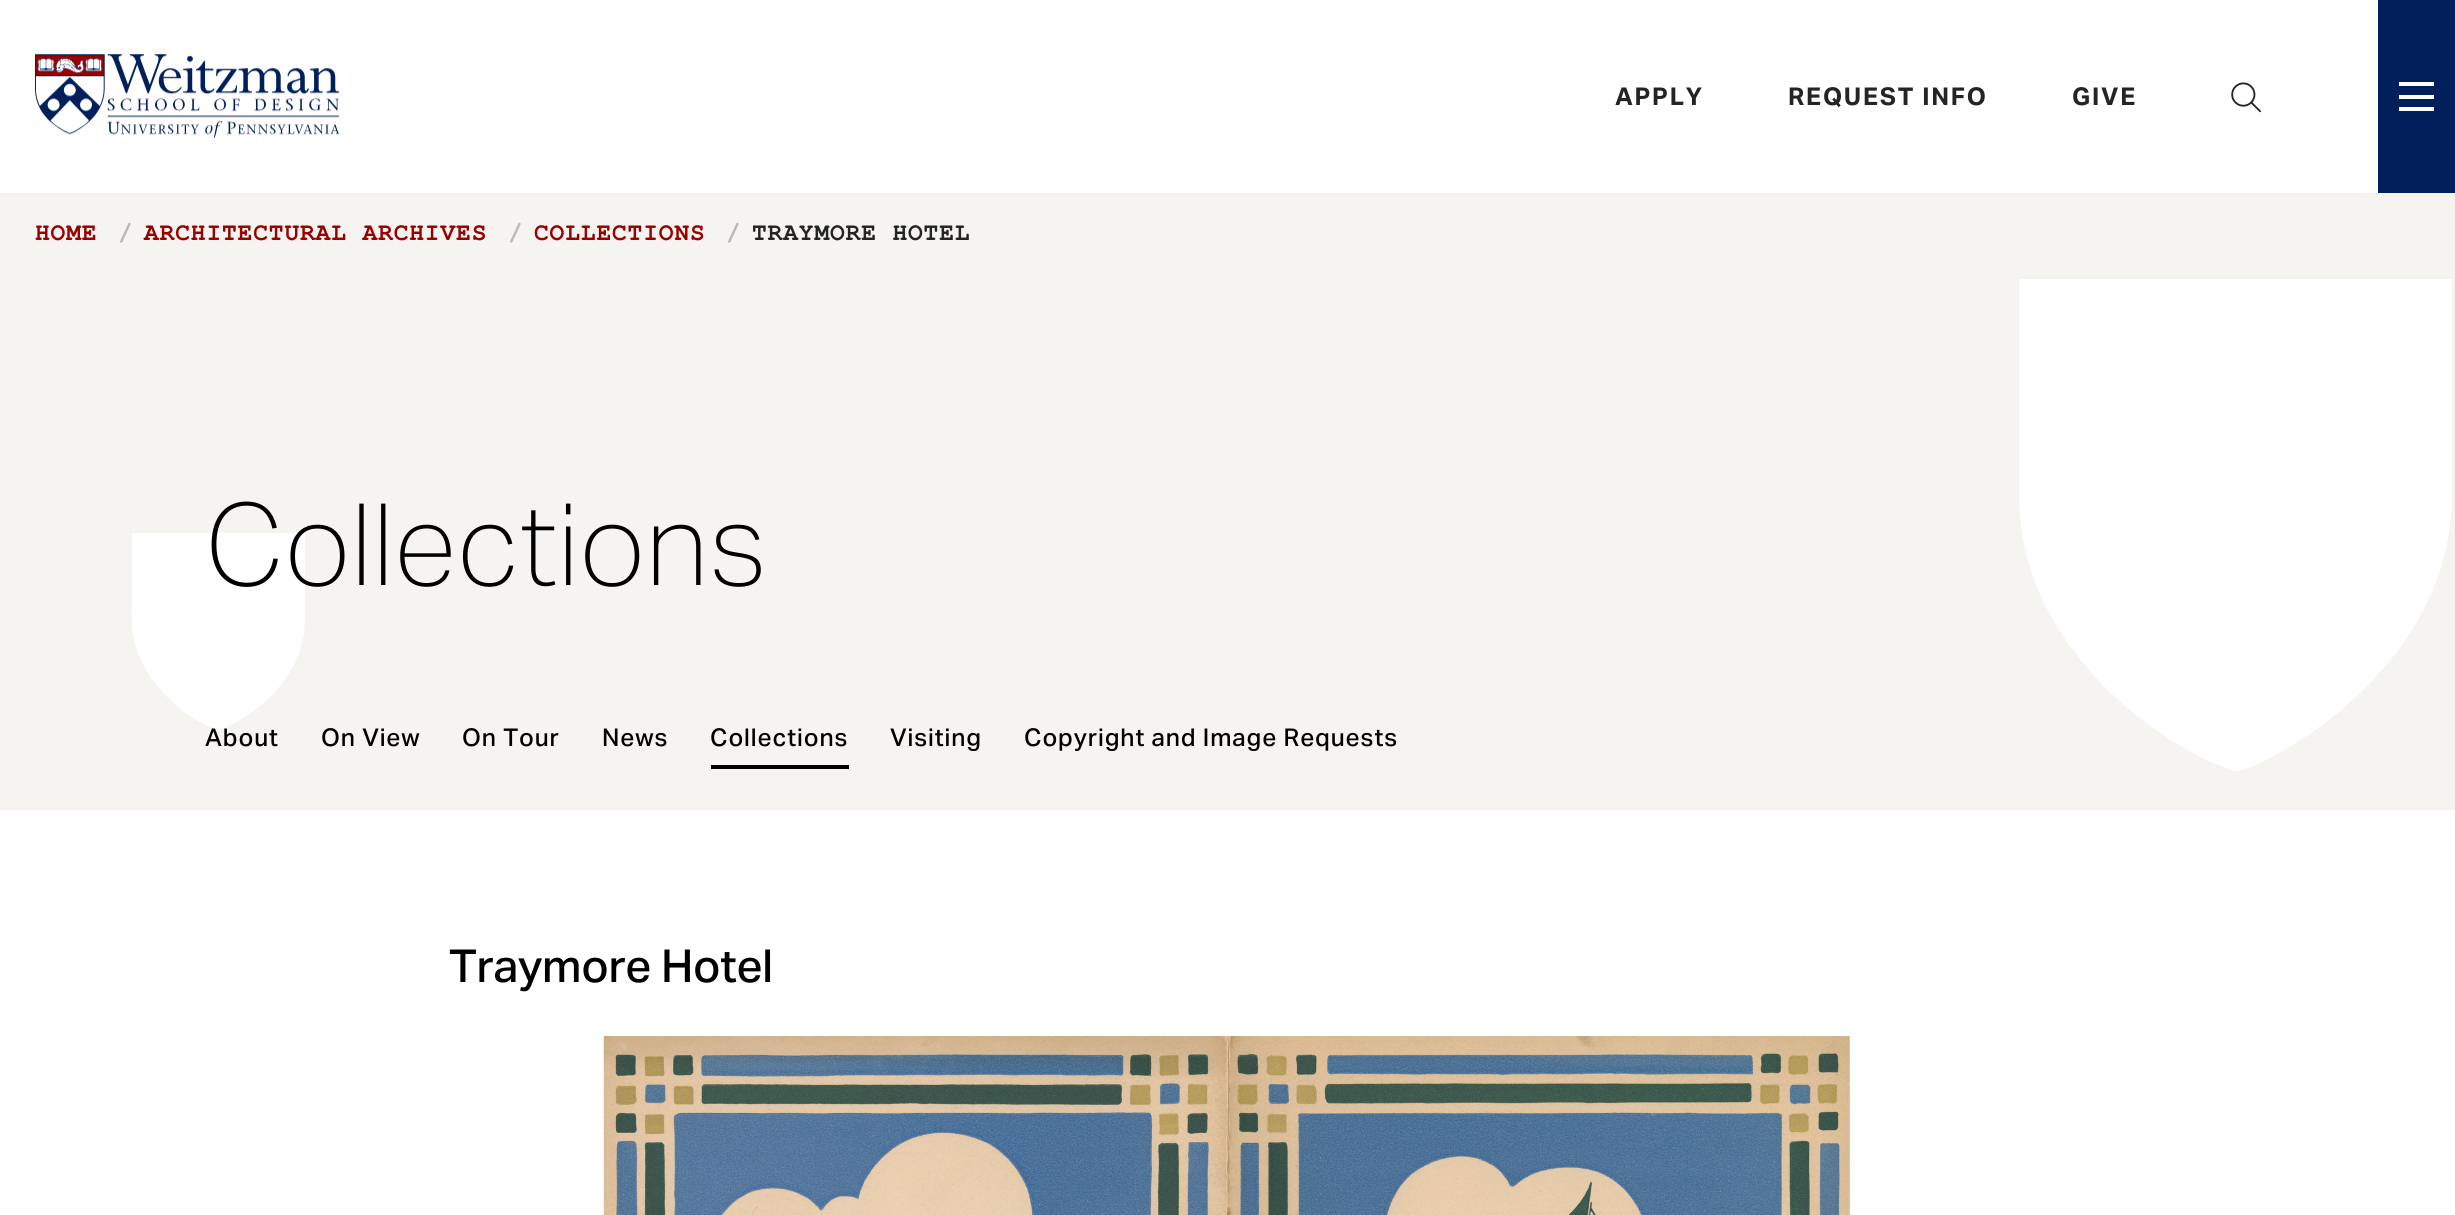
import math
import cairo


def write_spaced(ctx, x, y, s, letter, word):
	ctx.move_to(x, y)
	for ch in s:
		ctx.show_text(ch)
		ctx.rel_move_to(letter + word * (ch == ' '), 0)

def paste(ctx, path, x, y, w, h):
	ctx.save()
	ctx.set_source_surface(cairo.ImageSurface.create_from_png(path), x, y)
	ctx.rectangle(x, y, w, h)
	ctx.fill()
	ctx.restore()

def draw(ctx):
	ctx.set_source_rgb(1, 1, 1)
	ctx.paint()
	paste(ctx, 'media/1.png', 35, 54, 305, 85)
	ctx.select_font_face('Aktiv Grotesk', cairo.FONT_SLANT_NORMAL, cairo.FONT_WEIGHT_BOLD)
	ctx.set_font_size(24.5)
	ctx.set_source_rgb(0.141, 0.141, 0.141)
	for x, y, s in [
		(1615, 105, 'APPLY'),
		(1788, 105, 'REQUEST INFO'),
		(2072, 105, 'GIVE'),
	]:
		write_spaced(ctx, x, y, s, 1.75, 0)
	paste(ctx, 'media/2.png', 2231, 82, 30, 31)
	ctx.set_source_rgb(0.004, 0.122, 0.357)
	ctx.rectangle(2378, 0, 77, 193)
	ctx.fill()
	ctx.set_source_rgb(1, 1, 1)
	ctx.rectangle(2399, 82, 35, 4)
	ctx.rectangle(2399, 95, 35, 4)
	ctx.rectangle(2399, 107, 35, 4)
	ctx.fill()
	ctx.set_source_rgb(0.961, 0.957, 0.941)
	ctx.rectangle(0, 193, 2455, 617)
	ctx.fill()
	ctx.select_font_face('Courier New', cairo.FONT_SLANT_NORMAL, cairo.FONT_WEIGHT_BOLD)
	ctx.set_source_rgb(0.6, 0, 0)
	write_spaced(ctx, 35, 240, 'HOME', 0.9, 0)
	ctx.set_source_rgb(0.737, 0.737, 0.706)
	write_spaced(ctx, 118, 240, '/', 0.9, 0)
	ctx.set_source_rgb(0.6, 0, 0)
	write_spaced(ctx, 144, 240, 'ARCHITECTURAL ARCHIVES', 0.9, 0)
	ctx.set_source_rgb(0.737, 0.737, 0.706)
	write_spaced(ctx, 508, 240, '/', 0.9, 0)
	ctx.set_source_rgb(0.6, 0, 0)
	write_spaced(ctx, 534, 240, 'COLLECTIONS', 0.9, 0)
	ctx.set_source_rgb(0.737, 0.737, 0.706)
	write_spaced(ctx, 726, 240, '/', 0.9, 0)
	ctx.set_source_rgb(0.141, 0.141, 0.141)
	write_spaced(ctx, 752, 240, 'TRAYMORE HOTEL', 0.9, 0)
	ctx.set_source_rgb(1, 1, 1)
	ctx.new_path()
	ctx.move_to(219, 730)
	ctx.curve_to(206, 727, 187, 715, 177, 706)
	ctx.curve_to(155, 688, 137, 662, 133, 633)
	ctx.curve_to(131, 621, 132, 609, 132, 597)
	ctx.line_to(132, 533)
	ctx.line_to(305, 533)
	ctx.line_to(305, 619)
	ctx.curve_to(305, 657, 284, 684, 267, 700)
	ctx.curve_to(256, 710, 245, 717, 238, 721)
	ctx.curve_to(231, 725, 223, 729, 219, 730)
	ctx.close_path()
	ctx.fill()
	ctx.select_font_face('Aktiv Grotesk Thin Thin')
	ctx.set_font_size(114)
	ctx.set_source_rgb(0, 0, 0)
	write_spaced(ctx, 205, 585, 'Collections', 0.9, 0)
	ctx.set_source_rgb(1, 1, 1)
	ctx.new_path()
	ctx.move_to(2236, 771)
	ctx.line_to(2235, 771)
	ctx.curve_to(2217, 767, 2162, 741, 2115, 697)
	ctx.curve_to(2071, 656, 2019, 588, 2019, 494)
	ctx.line_to(2019, 279)
	ctx.line_to(2452, 279)
	ctx.line_to(2452, 494)
	ctx.curve_to(2452, 588, 2400, 656, 2356, 697)
	ctx.curve_to(2330, 721, 2303, 739, 2286, 749)
	ctx.curve_to(2267, 760, 2248, 769, 2238, 771)
	ctx.close_path()
	ctx.fill()
	ctx.select_font_face('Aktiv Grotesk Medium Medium')
	ctx.set_font_size(24.5)
	ctx.set_source_rgb(0, 0, 0)
	for x, y, s in [
		(205, 746, 'About'),
		(321, 746, 'On View'),
		(462, 746, 'On Tour'),
		(602, 746, 'News'),
		(710, 746, 'Collections'),
	]:
		write_spaced(ctx, x, y, s, 0.9, 0)
	ctx.rectangle(711, 765, 138, 4)
	ctx.fill()
	write_spaced(ctx, 890, 746, 'Visiting', 0.9, 0)
	write_spaced(ctx, 1024, 746, 'Copyright and Image Requests', 0.9, 0)
	ctx.set_font_size(45.5)
	write_spaced(ctx, 449, 982, 'Traymore Hotel', -0.3, 0)
	paste(ctx, 'media/3.png', 603, 1036, 1247, 179)


surface = cairo.ImageSurface(cairo.FORMAT_RGB24, 2455, 1215)
ctx = cairo.Context(surface)
options = cairo.FontOptions()
options.set_hint_metrics(cairo.HINT_METRICS_OFF)
options.set_hint_style(cairo.HINT_STYLE_NONE)
ctx.set_font_options(options)
ctx.set_miter_limit(4)
draw(ctx)
surface.write_to_png('image.png')
